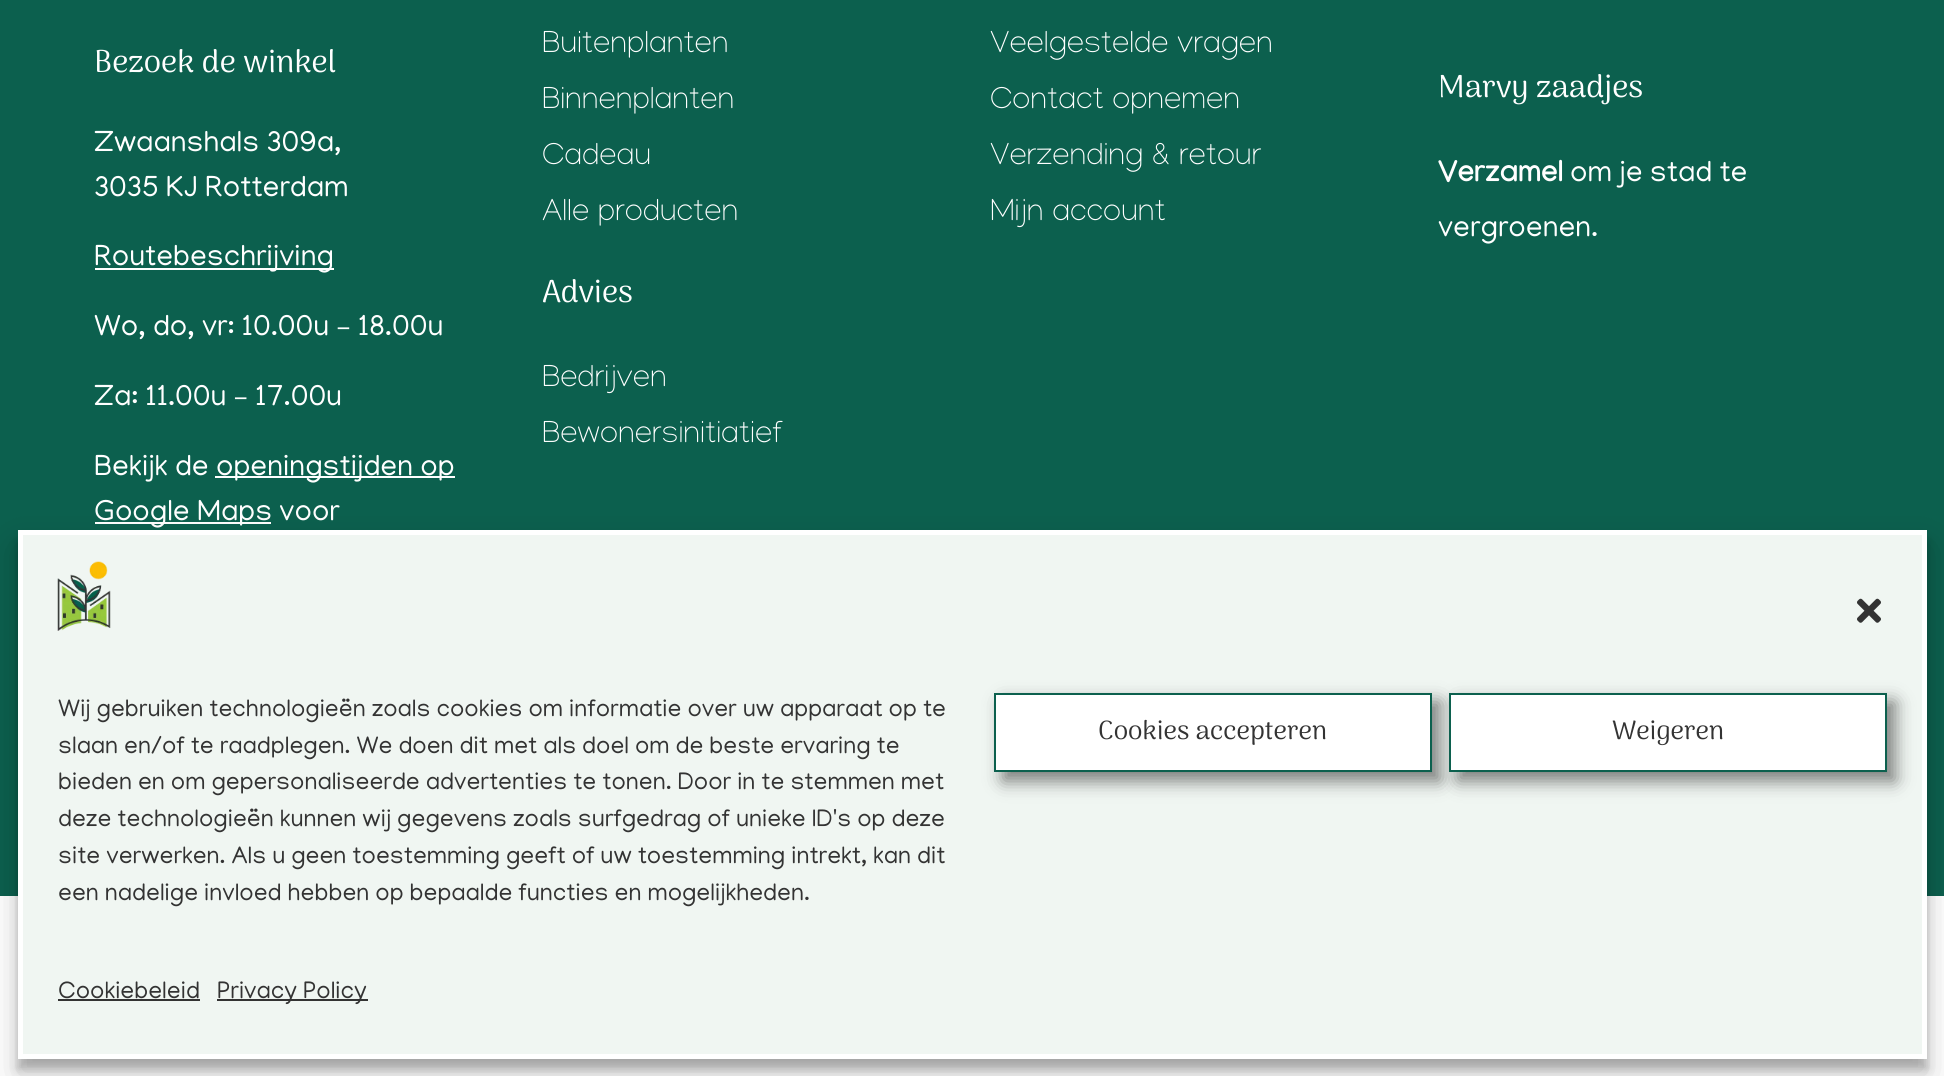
import math
import cairo


def round_path(ctx, x, y, w, h, r):
	ctx.new_sub_path()
	for i, (u, v) in enumerate([(x + w - r, y + h - r), (x + r, y + h - r), (x + r, y + r), (x + w - r, y + r)]):
		ctx.arc(u, v, r, i * math.pi / 2, (i + 1) * math.pi / 2)
	ctx.close_path()

def blur_box(ctx, x, y, w, h, r, blur, alpha):
	ctx.push_group_with_content(cairo.CONTENT_ALPHA)
	ctx.set_operator(cairo.OPERATOR_SOURCE)
	for i in range(15, -16, -2):
		e = blur * i / 6
		if min(w, h) + 2 * e > 0:
			ctx.set_source_rgba(0, 0, 0, alpha * math.erfc((i - 1) / 8.5) / 2)
			round_path(ctx, x - e, y - e, w + 2 * e, h + 2 * e, max(0, min(r + e + blur * .6, min(w, h) / 2 + e)))
			ctx.fill()
	ctx.mask(ctx.pop_group())

def paste(ctx, path, x, y, w, h):
	ctx.save()
	ctx.set_source_surface(cairo.ImageSurface.create_from_png(path), x, y)
	ctx.rectangle(x, y, w, h)
	ctx.fill()
	ctx.restore()

def draw(ctx):
	ctx.set_source_rgb(1, 1, 1)
	ctx.paint()
	ctx.set_source_rgb(0.047, 0.376, 0.306)
	ctx.rectangle(0, 0, 1944, 896)
	ctx.fill()
	ctx.select_font_face('Arima')
	ctx.set_font_size(31.5)
	ctx.set_source_rgb(1, 1, 1)
	ctx.move_to(94, 72)
	ctx.show_text('Bezoek de winkel')
	ctx.select_font_face('Manjari')
	ctx.set_font_size(29.75)
	ctx.move_to(94, 151)
	ctx.show_text('Zwaanshals 309a,')
	ctx.move_to(94, 196)
	ctx.show_text('3035 KJ Rotterdam')
	ctx.rectangle(95, 268, 239, 2)
	ctx.fill()
	for x, y, s in [
		(94, 265, 'Routebeschrijving'),
		(94, 335, 'Wo, do, vr: 10.00u – 18.00u'),
		(94, 405, 'Za: 11.00u – 17.00u'),
		(94, 475, 'Bekijk de'),
	]:
		ctx.move_to(x, y)
		ctx.show_text(s)
	ctx.rectangle(215, 476, 240, 2)
	ctx.fill()
	ctx.move_to(216, 475)
	ctx.show_text('openingstijden op')
	ctx.rectangle(95, 522, 176, 2)
	ctx.fill()
	ctx.move_to(94, 520)
	ctx.show_text('Google Maps voor')
	ctx.select_font_face('Manjari Thin')
	ctx.set_font_size(31.5)
	for x, y, s in [
		(542, 52, 'Buitenplanten'),
		(542, 108, 'Binnenplanten'),
		(542, 164, 'Cadeau'),
		(542, 220, 'Alle producten'),
	]:
		ctx.move_to(x, y)
		ctx.show_text(s)
	ctx.select_font_face('Arima')
	ctx.move_to(542, 302)
	ctx.show_text('Advies')
	ctx.select_font_face('Manjari Thin')
	for x, y, s in [
		(542, 386, 'Bedrijven'),
		(542, 442, 'Bewonersinitiatief'),
		(990, 52, 'Veelgestelde vragen'),
		(990, 108, 'Contact opnemen'),
		(990, 164, 'Verzending & retour'),
		(990, 220, 'Mijn account'),
	]:
		ctx.move_to(x, y)
		ctx.show_text(s)
	ctx.select_font_face('Arima')
	ctx.move_to(1438, 97)
	ctx.show_text('Marvy zaadjes')
	ctx.select_font_face('Manjari', cairo.FONT_SLANT_NORMAL, cairo.FONT_WEIGHT_BOLD)
	ctx.set_font_size(29.75)
	ctx.move_to(1438, 181)
	ctx.show_text('Verzamel')
	ctx.select_font_face('Manjari')
	ctx.move_to(1570, 181)
	ctx.show_text('om je stad te')
	ctx.move_to(1438, 236)
	ctx.show_text('vergroenen.')
	ctx.set_source_rgb(0, 0, 0)
	blur_box(ctx, 18, 541, 1909, 528, 0, 5, 0.23)
	blur_box(ctx, 18, 548, 1909, 528, 0, 17.5, 0.19)
	ctx.set_source_rgb(0.941, 0.961, 0.949)
	ctx.rectangle(20.5, 532.5, 1904, 524)
	ctx.fill_preserve()
	ctx.set_source_rgb(1, 1, 1)
	ctx.set_line_width(5)
	ctx.stroke()
	paste(ctx, 'media/1.png', 57, 561, 54, 70)
	paste(ctx, 'media/2.png', 1857, 598, 24, 25)
	ctx.set_font_size(24.5)
	ctx.set_source_rgb(0.2, 0.2, 0.2)
	for x, y, s in [
		(58, 716, 'Wij gebruiken technologieën zoals cookies om informatie over uw apparaat op te'),
		(58, 753, 'slaan en/of te raadplegen. We doen dit met als doel om de beste ervaring te'),
		(58, 789, 'bieden en om gepersonaliseerde advertenties te tonen. Door in te stemmen met'),
		(58, 826, 'deze technologieën kunnen wij gegevens zoals surfgedrag of unieke ID\'s op deze'),
		(58, 863, 'site verwerken. Als u geen toestemming geeft of uw toestemming intrekt, kan dit'),
		(58, 900, 'een nadelige invloed hebben op bepaalde functies en mogelijkheden.'),
	]:
		ctx.move_to(x, y)
		ctx.show_text(s)
	ctx.set_source_rgb(0, 0, 0)
	blur_box(ctx, 1003, 702, 437, 79, 0, 9, 0.5)
	ctx.set_source_rgb(1, 1, 1)
	ctx.rectangle(995, 694, 436, 77)
	ctx.fill_preserve()
	ctx.set_source_rgb(0.047, 0.376, 0.306)
	ctx.set_line_width(2)
	ctx.stroke()
	ctx.select_font_face('Arima')
	ctx.set_font_size(26.25)
	ctx.set_source_rgb(0.2, 0.2, 0.2)
	ctx.move_to(1098, 739)
	ctx.show_text('Cookies accepteren')
	ctx.set_source_rgb(0, 0, 0)
	blur_box(ctx, 1458, 702, 437, 79, 0, 9, 0.5)
	ctx.set_source_rgb(1, 1, 1)
	ctx.rectangle(1450, 694, 436, 77)
	ctx.fill_preserve()
	ctx.set_source_rgb(0.047, 0.376, 0.306)
	ctx.stroke()
	ctx.set_source_rgb(0.2, 0.2, 0.2)
	ctx.move_to(1612, 739)
	ctx.show_text('Weigeren')
	ctx.select_font_face('Manjari')
	ctx.set_font_size(24.5)
	ctx.move_to(58, 998)
	ctx.show_text('Cookiebeleid')
	ctx.rectangle(58, 999, 142, 2)
	ctx.fill()
	ctx.rectangle(217, 999, 151, 2)
	ctx.fill()
	ctx.move_to(217, 998)
	ctx.show_text('Privacy Policy')


surface = cairo.ImageSurface(cairo.FORMAT_RGB24, 1944, 1076)
ctx = cairo.Context(surface)
options = cairo.FontOptions()
options.set_hint_metrics(cairo.HINT_METRICS_OFF)
options.set_hint_style(cairo.HINT_STYLE_NONE)
ctx.set_font_options(options)
ctx.set_miter_limit(4)
draw(ctx)
surface.write_to_png('image.png')
